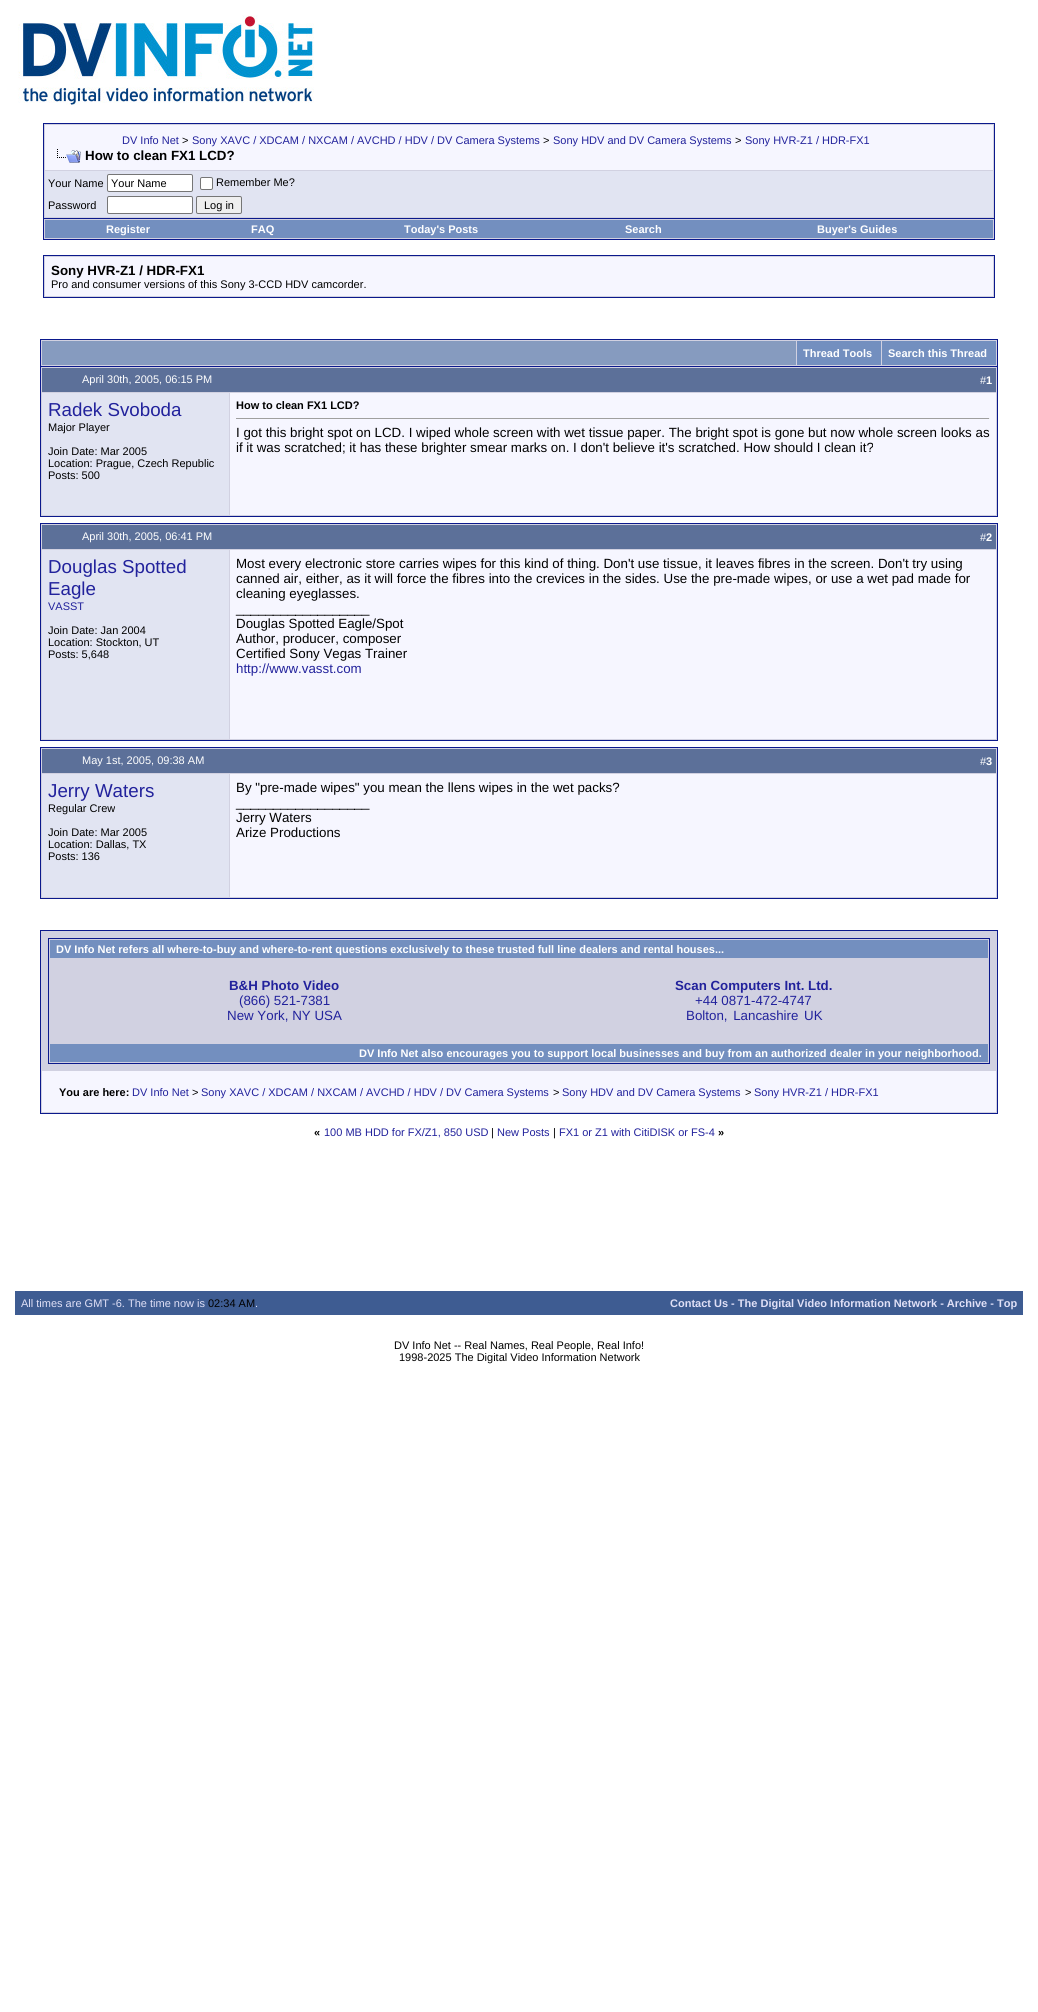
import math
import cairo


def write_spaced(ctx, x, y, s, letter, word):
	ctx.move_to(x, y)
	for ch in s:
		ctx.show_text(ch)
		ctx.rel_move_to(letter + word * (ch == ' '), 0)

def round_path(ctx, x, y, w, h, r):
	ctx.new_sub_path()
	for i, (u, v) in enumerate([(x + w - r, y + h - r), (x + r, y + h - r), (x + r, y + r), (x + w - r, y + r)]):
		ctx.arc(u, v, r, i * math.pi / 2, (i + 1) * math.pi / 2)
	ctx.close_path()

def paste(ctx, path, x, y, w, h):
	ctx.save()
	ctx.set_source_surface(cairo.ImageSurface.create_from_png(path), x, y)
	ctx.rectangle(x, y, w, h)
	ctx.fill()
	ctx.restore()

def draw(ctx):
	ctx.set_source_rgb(1, 1, 1)
	ctx.paint()
	paste(ctx, 'media/1.png', 18, 15, 296, 90)
	ctx.set_source_rgb(0.82, 0.82, 0.882)
	ctx.rectangle(43.5, 123.5, 951, 95)
	ctx.fill_preserve()
	ctx.set_source_rgb(0.043, 0.098, 0.549)
	ctx.set_line_width(1)
	ctx.stroke()
	ctx.set_source_rgb(0.961, 0.961, 1)
	ctx.rectangle(45, 125, 948, 45)
	ctx.fill()
	ctx.select_font_face('Liberation Sans')
	ctx.set_font_size(11)
	ctx.set_source_rgb(0.133, 0.133, 0.612)
	ctx.move_to(122, 144)
	ctx.show_text('DV Info Net')
	ctx.set_source_rgb(0, 0, 0)
	ctx.move_to(182, 144)
	ctx.show_text('>')
	ctx.set_source_rgb(0.133, 0.133, 0.612)
	ctx.move_to(192, 144)
	ctx.show_text('Sony XAVC / XDCAM / NXCAM / AVCHD / HDV / DV Camera Systems')
	ctx.set_source_rgb(0, 0, 0)
	ctx.move_to(543, 144)
	ctx.show_text('>')
	ctx.set_source_rgb(0.133, 0.133, 0.612)
	ctx.move_to(553, 144)
	ctx.show_text('Sony HDV and DV Camera Systems')
	ctx.set_source_rgb(0, 0, 0)
	ctx.move_to(735, 144)
	ctx.show_text('>')
	ctx.set_source_rgb(0.133, 0.133, 0.612)
	ctx.move_to(745, 144)
	ctx.show_text('Sony HVR-Z1 / HDR-FX1')
	paste(ctx, 'media/2.png', 57, 149, 24, 14)
	ctx.select_font_face('Liberation Sans', cairo.FONT_SLANT_NORMAL, cairo.FONT_WEIGHT_BOLD)
	ctx.set_font_size(13.33)
	ctx.set_source_rgb(0, 0, 0)
	ctx.move_to(85, 160)
	ctx.show_text('How to clean FX1 LCD?')
	ctx.set_source_rgb(0.882, 0.894, 0.949)
	ctx.rectangle(45, 171, 948, 46)
	ctx.fill()
	ctx.select_font_face('Liberation Sans')
	ctx.set_font_size(11)
	ctx.set_source_rgb(0, 0, 0)
	ctx.move_to(48, 187)
	ctx.show_text('Your Name')
	ctx.set_source_rgb(1, 1, 1)
	round_path(ctx, 107.5, 174.5, 85, 17, 1.5)
	ctx.fill_preserve()
	ctx.set_source_rgb(0.463, 0.463, 0.463)
	ctx.stroke()
	ctx.set_source_rgb(0, 0, 0)
	ctx.move_to(111, 187)
	ctx.show_text('Your Name')
	ctx.set_source_rgb(1, 1, 1)
	round_path(ctx, 200.5, 177.5, 12, 12, 1.5)
	ctx.fill_preserve()
	ctx.set_source_rgb(0.463, 0.463, 0.463)
	ctx.stroke()
	ctx.set_source_rgb(0, 0, 0)
	ctx.move_to(216, 186)
	ctx.show_text('Remember Me?')
	ctx.move_to(48, 209)
	ctx.show_text('Password')
	ctx.set_source_rgb(1, 1, 1)
	round_path(ctx, 107.5, 196.5, 85, 17, 1.5)
	ctx.fill_preserve()
	ctx.set_source_rgb(0.463, 0.463, 0.463)
	ctx.stroke()
	ctx.set_source_rgb(0.937, 0.937, 0.937)
	round_path(ctx, 196.5, 196.5, 45, 17, 1.5)
	ctx.fill_preserve()
	ctx.set_source_rgb(0.463, 0.463, 0.463)
	ctx.stroke()
	ctx.set_source_rgb(0, 0, 0)
	ctx.move_to(204, 209)
	ctx.show_text('Log in')
	ctx.set_source_rgb(0.82, 0.82, 0.882)
	ctx.rectangle(44, 219, 950, 20)
	ctx.fill()
	ctx.set_source_rgb(0.043, 0.098, 0.549)
	ctx.rectangle(994, 219, 1, 21)
	ctx.rectangle(43, 239, 952, 1)
	ctx.rectangle(43, 219, 1, 21)
	ctx.fill()
	ctx.set_source_rgb(0.451, 0.561, 0.749)
	ctx.rectangle(45, 220, 948, 18)
	ctx.fill()
	ctx.select_font_face('Liberation Sans', cairo.FONT_SLANT_NORMAL, cairo.FONT_WEIGHT_BOLD)
	ctx.set_source_rgb(1, 1, 1)
	for x, y, s in [
		(106, 233, 'Register'),
		(251, 233, 'FAQ'),
		(404, 233, 'Today\'s Posts'),
		(625, 233, 'Search'),
		(817, 233, 'Buyer\'s Guides'),
	]:
		ctx.move_to(x, y)
		ctx.show_text(s)
	ctx.set_source_rgb(0.82, 0.82, 0.882)
	ctx.rectangle(43.5, 255.5, 951, 42)
	ctx.fill_preserve()
	ctx.set_source_rgb(0.043, 0.098, 0.549)
	ctx.stroke()
	ctx.set_source_rgb(0.961, 0.961, 1)
	ctx.rectangle(45, 257, 948, 39)
	ctx.fill()
	ctx.set_font_size(13.33)
	ctx.set_source_rgb(0, 0, 0)
	ctx.move_to(51, 275)
	ctx.show_text('Sony HVR-Z1 / HDR-FX1')
	ctx.select_font_face('Liberation Sans')
	ctx.set_font_size(11)
	ctx.move_to(51, 288)
	ctx.show_text('Pro and consumer versions of this Sony 3-CCD HDV camcorder.')
	ctx.set_source_rgb(0.82, 0.82, 0.882)
	ctx.rectangle(41, 340, 956, 26)
	ctx.fill()
	ctx.set_source_rgb(0.043, 0.098, 0.549)
	ctx.rectangle(40, 339, 958, 1)
	ctx.rectangle(997, 339, 1, 27)
	ctx.rectangle(40, 339, 1, 27)
	ctx.fill()
	ctx.set_source_rgb(0.525, 0.608, 0.749)
	ctx.rectangle(42, 341, 754, 24)
	ctx.fill()
	ctx.set_source_rgb(0.451, 0.561, 0.749)
	ctx.rectangle(797, 341, 84, 24)
	ctx.fill()
	ctx.select_font_face('Liberation Sans', cairo.FONT_SLANT_NORMAL, cairo.FONT_WEIGHT_BOLD)
	ctx.set_source_rgb(1, 1, 1)
	ctx.move_to(803, 357)
	ctx.show_text('Thread Tools')
	ctx.set_source_rgb(0.451, 0.561, 0.749)
	ctx.rectangle(882, 341, 114, 24)
	ctx.fill()
	ctx.set_source_rgb(1, 1, 1)
	ctx.move_to(888, 357)
	ctx.show_text('Search this Thread')
	ctx.rectangle(40.5, 366.5, 957, 150)
	ctx.set_source_rgb(0.043, 0.098, 0.549)
	ctx.stroke()
	ctx.set_source_rgb(0.361, 0.439, 0.6)
	ctx.rectangle(42, 368, 954, 24)
	ctx.fill()
	ctx.set_source_rgb(0.82, 0.82, 0.882)
	ctx.rectangle(41, 367, 956, 1)
	ctx.rectangle(41, 392, 189, 1)
	ctx.rectangle(41, 367, 1, 120)
	ctx.fill()
	ctx.select_font_face('Liberation Sans')
	ctx.set_source_rgb(1, 1, 1)
	ctx.move_to(82, 383)
	ctx.show_text('April 30th, 2005, 06:15 PM')
	ctx.set_source_rgb(0.82, 0.82, 0.882)
	ctx.rectangle(996, 367, 1, 149)
	ctx.fill()
	ctx.rectangle(230, 392, 767, 1)
	ctx.fill()
	ctx.set_source_rgb(1, 1, 1)
	ctx.move_to(980, 384)
	ctx.show_text('#')
	ctx.select_font_face('Liberation Sans', cairo.FONT_SLANT_NORMAL, cairo.FONT_WEIGHT_BOLD)
	ctx.move_to(986, 384)
	ctx.show_text('1')
	ctx.set_source_rgb(0.882, 0.894, 0.949)
	ctx.rectangle(42, 393, 187, 122)
	ctx.fill()
	ctx.set_source_rgb(0.82, 0.82, 0.882)
	ctx.rectangle(229, 393, 1, 123)
	ctx.fill()
	ctx.select_font_face('Liberation Sans')
	ctx.set_font_size(18.75)
	ctx.set_source_rgb(0.133, 0.133, 0.612)
	ctx.move_to(48, 416)
	ctx.show_text('Radek Svoboda')
	ctx.set_font_size(11)
	ctx.set_source_rgb(0, 0, 0)
	for x, y, s in [
		(48, 431, 'Major Player'),
		(48, 455, 'Join Date: Mar 2005'),
		(48, 467, 'Location: Prague, Czech Republic'),
		(48, 479, 'Posts: 500'),
	]:
		ctx.move_to(x, y)
		ctx.show_text(s)
	ctx.set_source_rgb(0.961, 0.961, 1)
	ctx.rectangle(230, 393, 766, 122)
	ctx.fill()
	ctx.select_font_face('Liberation Sans', cairo.FONT_SLANT_NORMAL, cairo.FONT_WEIGHT_BOLD)
	ctx.set_source_rgb(0, 0, 0)
	ctx.move_to(236, 409)
	ctx.show_text('How to clean FX1 LCD?')
	ctx.set_source_rgb(0.624, 0.624, 0.624)
	ctx.rectangle(236, 418, 754, 1)
	ctx.fill()
	ctx.set_source_rgb(0.933, 0.933, 0.933)
	ctx.rectangle(989, 418, 1, 1)
	ctx.fill()
	ctx.select_font_face('Liberation Sans')
	ctx.set_font_size(13.33)
	ctx.set_source_rgb(0, 0, 0)
	ctx.move_to(236, 437)
	ctx.show_text('I got this bright spot on LCD. I wiped whole screen with wet tissue paper. The bright spot is gone but now whole screen looks as')
	ctx.move_to(236, 452)
	ctx.show_text('if it was scratched; it has these brighter smear marks on. I don\'t believe it\'s scratched. How should I clean it?')
	ctx.set_source_rgb(0.82, 0.82, 0.882)
	ctx.rectangle(41, 515, 956, 1)
	ctx.fill()
	ctx.rectangle(41, 487, 1, 29)
	ctx.fill()
	ctx.rectangle(40.5, 523.5, 957, 217)
	ctx.set_source_rgb(0.043, 0.098, 0.549)
	ctx.stroke()
	ctx.set_source_rgb(0.361, 0.439, 0.6)
	ctx.rectangle(42, 525, 954, 24)
	ctx.fill()
	ctx.set_source_rgb(0.82, 0.82, 0.882)
	ctx.rectangle(41, 524, 956, 1)
	ctx.rectangle(41, 549, 189, 1)
	ctx.rectangle(41, 524, 1, 158)
	ctx.fill()
	ctx.set_font_size(11)
	ctx.set_source_rgb(1, 1, 1)
	ctx.move_to(82, 540)
	ctx.show_text('April 30th, 2005, 06:41 PM')
	ctx.set_source_rgb(0.82, 0.82, 0.882)
	ctx.rectangle(996, 524, 1, 216)
	ctx.fill()
	ctx.rectangle(230, 549, 767, 1)
	ctx.fill()
	ctx.set_source_rgb(1, 1, 1)
	ctx.move_to(980, 541)
	ctx.show_text('#')
	ctx.select_font_face('Liberation Sans', cairo.FONT_SLANT_NORMAL, cairo.FONT_WEIGHT_BOLD)
	ctx.move_to(986, 541)
	ctx.show_text('2')
	ctx.set_source_rgb(0.882, 0.894, 0.949)
	ctx.rectangle(42, 550, 187, 189)
	ctx.fill()
	ctx.set_source_rgb(0.82, 0.82, 0.882)
	ctx.rectangle(229, 550, 1, 190)
	ctx.fill()
	ctx.select_font_face('Liberation Sans')
	ctx.set_font_size(18.75)
	ctx.set_source_rgb(0.133, 0.133, 0.612)
	ctx.move_to(48, 573)
	ctx.show_text('Douglas Spotted')
	ctx.move_to(48, 595)
	ctx.show_text('Eagle')
	ctx.set_font_size(11)
	ctx.move_to(48, 610)
	ctx.show_text('VASST')
	ctx.set_source_rgb(0, 0, 0)
	for x, y, s in [
		(48, 634, 'Join Date: Jan 2004'),
		(48, 646, 'Location: Stockton, UT'),
		(48, 658, 'Posts: 5,648'),
	]:
		ctx.move_to(x, y)
		ctx.show_text(s)
	ctx.set_source_rgb(0.961, 0.961, 1)
	ctx.rectangle(230, 550, 766, 189)
	ctx.fill()
	ctx.set_font_size(13.33)
	ctx.set_source_rgb(0, 0, 0)
	for x, y, s in [
		(236, 568, 'Most every electronic store carries wipes for this kind of thing. Don\'t use tissue, it leaves fibres in the screen. Don\'t try using'),
		(236, 583, 'canned air, either, as it will force the fibres into the crevices in the sides. Use the pre-made wipes, or use a wet pad made for'),
		(236, 598, 'cleaning eyeglasses.'),
		(236, 613, '__________________'),
		(236, 628, 'Douglas Spotted Eagle/Spot'),
		(236, 643, 'Author, producer, composer'),
		(236, 658, 'Certified Sony Vegas Trainer'),
	]:
		ctx.move_to(x, y)
		ctx.show_text(s)
	ctx.set_font_size(13.3)
	ctx.set_source_rgb(0.133, 0.133, 0.612)
	ctx.move_to(236, 673)
	ctx.show_text('http://www.vasst.com')
	ctx.set_source_rgb(0.82, 0.82, 0.882)
	ctx.rectangle(41, 739, 956, 1)
	ctx.fill()
	ctx.rectangle(41, 682, 1, 58)
	ctx.fill()
	ctx.rectangle(40.5, 747.5, 957, 151)
	ctx.set_source_rgb(0.043, 0.098, 0.549)
	ctx.stroke()
	ctx.set_source_rgb(0.361, 0.439, 0.6)
	ctx.rectangle(42, 749, 954, 24)
	ctx.fill()
	ctx.set_source_rgb(0.82, 0.82, 0.882)
	ctx.rectangle(41, 748, 956, 1)
	ctx.rectangle(41, 773, 189, 1)
	ctx.rectangle(41, 748, 1, 120)
	ctx.fill()
	ctx.set_font_size(11)
	ctx.set_source_rgb(1, 1, 1)
	ctx.move_to(82, 764)
	ctx.show_text('May 1st, 2005, 09:38 AM')
	ctx.set_source_rgb(0.82, 0.82, 0.882)
	ctx.rectangle(996, 748, 1, 150)
	ctx.fill()
	ctx.rectangle(230, 773, 767, 1)
	ctx.fill()
	ctx.set_source_rgb(1, 1, 1)
	ctx.move_to(980, 765)
	ctx.show_text('#')
	ctx.select_font_face('Liberation Sans', cairo.FONT_SLANT_NORMAL, cairo.FONT_WEIGHT_BOLD)
	ctx.move_to(986, 765)
	ctx.show_text('3')
	ctx.set_source_rgb(0.882, 0.894, 0.949)
	ctx.rectangle(42, 774, 187, 123)
	ctx.fill()
	ctx.set_source_rgb(0.82, 0.82, 0.882)
	ctx.rectangle(229, 774, 1, 124)
	ctx.fill()
	ctx.select_font_face('Liberation Sans')
	ctx.set_font_size(18.75)
	ctx.set_source_rgb(0.133, 0.133, 0.612)
	ctx.move_to(48, 797)
	ctx.show_text('Jerry Waters')
	ctx.set_font_size(11)
	ctx.set_source_rgb(0, 0, 0)
	for x, y, s in [
		(48, 812, 'Regular Crew'),
		(48, 836, 'Join Date: Mar 2005'),
		(48, 848, 'Location: Dallas, TX'),
		(48, 860, 'Posts: 136'),
	]:
		ctx.move_to(x, y)
		ctx.show_text(s)
	ctx.set_source_rgb(0.961, 0.961, 1)
	ctx.rectangle(230, 774, 766, 123)
	ctx.fill()
	ctx.set_font_size(13.33)
	ctx.set_source_rgb(0, 0, 0)
	for x, y, s in [
		(236, 792, 'By "pre-made wipes" you mean the llens wipes in the wet packs?'),
		(236, 807, '__________________'),
		(236, 822, 'Jerry Waters'),
		(236, 837, 'Arize Productions'),
	]:
		ctx.move_to(x, y)
		ctx.show_text(s)
	ctx.set_source_rgb(0.82, 0.82, 0.882)
	ctx.rectangle(41, 897, 956, 1)
	ctx.fill()
	ctx.rectangle(41, 868, 1, 30)
	ctx.fill()
	ctx.rectangle(40.5, 930.5, 957, 183)
	ctx.fill_preserve()
	ctx.set_source_rgb(0.043, 0.098, 0.549)
	ctx.stroke()
	ctx.rectangle(48.5, 938.5, 941, 125)
	ctx.stroke()
	ctx.set_source_rgb(0.451, 0.561, 0.749)
	ctx.rectangle(50, 940, 938, 18)
	ctx.fill()
	ctx.select_font_face('Liberation Sans', cairo.FONT_SLANT_NORMAL, cairo.FONT_WEIGHT_BOLD)
	ctx.set_font_size(11)
	ctx.set_source_rgb(1, 1, 1)
	ctx.move_to(56, 953)
	ctx.show_text('DV Info Net refers all where-to-buy and where-to-rent questions exclusively to these trusted full line dealers and rental houses...')
	ctx.set_font_size(13.3)
	ctx.set_source_rgb(0.133, 0.133, 0.612)
	ctx.move_to(229, 990)
	ctx.show_text('B&H Photo Video')
	ctx.select_font_face('Liberation Sans')
	ctx.set_font_size(13.33)
	ctx.move_to(239, 1005)
	ctx.show_text('(866) 521-7381')
	ctx.move_to(227, 1020)
	ctx.show_text('New York, NY USA')
	ctx.select_font_face('Liberation Sans', cairo.FONT_SLANT_NORMAL, cairo.FONT_WEIGHT_BOLD)
	ctx.set_font_size(13.3)
	ctx.move_to(675, 990)
	ctx.show_text('Scan Computers Int. Ltd.')
	ctx.select_font_face('Liberation Sans')
	ctx.set_font_size(13.33)
	ctx.move_to(695, 1005)
	ctx.show_text('+44 0871-472-4747')
	write_spaced(ctx, 686, 1020, 'Bolton, Lancashire UK', 0, 2)
	ctx.set_source_rgb(0.451, 0.561, 0.749)
	ctx.rectangle(50, 1044, 938, 18)
	ctx.fill()
	ctx.select_font_face('Liberation Sans', cairo.FONT_SLANT_NORMAL, cairo.FONT_WEIGHT_BOLD)
	ctx.set_font_size(11)
	ctx.set_source_rgb(1, 1, 1)
	ctx.move_to(359, 1057)
	ctx.show_text('DV Info Net also encourages you to support local businesses and buy from an authorized dealer in your neighborhood.')
	ctx.set_source_rgb(0.961, 0.961, 1)
	ctx.rectangle(42, 1071, 954, 41)
	ctx.fill()
	ctx.set_source_rgb(0, 0, 0)
	ctx.move_to(59, 1096)
	ctx.show_text('You are here:')
	ctx.select_font_face('Liberation Sans')
	ctx.set_source_rgb(0.133, 0.133, 0.612)
	ctx.move_to(132, 1096)
	ctx.show_text('DV Info Net')
	ctx.set_source_rgb(0, 0, 0)
	ctx.move_to(192, 1096)
	ctx.show_text('>')
	ctx.set_source_rgb(0.133, 0.133, 0.612)
	ctx.move_to(201, 1096)
	ctx.show_text('Sony XAVC / XDCAM / NXCAM / AVCHD / HDV / DV Camera Systems')
	ctx.set_source_rgb(0, 0, 0)
	ctx.move_to(553, 1096)
	ctx.show_text('>')
	ctx.set_source_rgb(0.133, 0.133, 0.612)
	ctx.move_to(562, 1096)
	ctx.show_text('Sony HDV and DV Camera Systems')
	ctx.set_source_rgb(0, 0, 0)
	ctx.move_to(745, 1096)
	ctx.show_text('>')
	ctx.set_source_rgb(0.133, 0.133, 0.612)
	ctx.move_to(754, 1096)
	ctx.show_text('Sony HVR-Z1 / HDR-FX1')
	ctx.select_font_face('Liberation Sans', cairo.FONT_SLANT_NORMAL, cairo.FONT_WEIGHT_BOLD)
	ctx.set_source_rgb(0, 0, 0)
	ctx.move_to(314, 1136)
	ctx.show_text('«')
	ctx.select_font_face('Liberation Sans')
	ctx.set_source_rgb(0.133, 0.133, 0.612)
	ctx.move_to(324, 1136)
	ctx.show_text('100 MB HDD for FX/Z1, 850 USD')
	ctx.set_source_rgb(0, 0, 0)
	ctx.move_to(491, 1136)
	ctx.show_text('|')
	ctx.set_source_rgb(0.133, 0.133, 0.612)
	ctx.move_to(497, 1136)
	ctx.show_text('New Posts')
	ctx.set_source_rgb(0, 0, 0)
	ctx.move_to(553, 1136)
	ctx.show_text('|')
	ctx.set_source_rgb(0.133, 0.133, 0.612)
	ctx.move_to(559, 1136)
	ctx.show_text('FX1 or Z1 with CitiDISK or FS-4')
	ctx.select_font_face('Liberation Sans', cairo.FONT_SLANT_NORMAL, cairo.FONT_WEIGHT_BOLD)
	ctx.set_source_rgb(0, 0, 0)
	ctx.move_to(718, 1136)
	ctx.show_text('»')
	ctx.set_source_rgb(0.243, 0.361, 0.573)
	ctx.rectangle(15, 1291, 1008, 24)
	ctx.fill()
	ctx.select_font_face('Liberation Sans')
	ctx.set_source_rgb(0.878, 0.878, 0.965)
	ctx.move_to(21, 1307)
	ctx.show_text('All times are GMT -6. The time now is')
	ctx.set_source_rgb(0, 0, 0)
	ctx.move_to(208, 1307)
	ctx.show_text('02:34 AM')
	ctx.set_source_rgb(0.878, 0.878, 0.965)
	ctx.move_to(255, 1307)
	ctx.show_text('.')
	ctx.select_font_face('Liberation Sans', cairo.FONT_SLANT_NORMAL, cairo.FONT_WEIGHT_BOLD)
	ctx.move_to(670, 1307)
	ctx.show_text('Contact Us - The Digital Video Information Network - Archive - Top')
	ctx.select_font_face('Liberation Sans')
	ctx.set_source_rgb(0, 0, 0)
	ctx.move_to(394, 1349)
	ctx.show_text('DV Info Net -- Real Names, Real People, Real Info!')
	ctx.move_to(399, 1361)
	ctx.show_text('1998-2025 The Digital Video Information Network')


surface = cairo.ImageSurface(cairo.FORMAT_RGB24, 1038, 2012)
ctx = cairo.Context(surface)
options = cairo.FontOptions()
options.set_hint_metrics(cairo.HINT_METRICS_OFF)
options.set_hint_style(cairo.HINT_STYLE_NONE)
ctx.set_font_options(options)
ctx.set_miter_limit(4)
draw(ctx)
surface.write_to_png('image.png')
